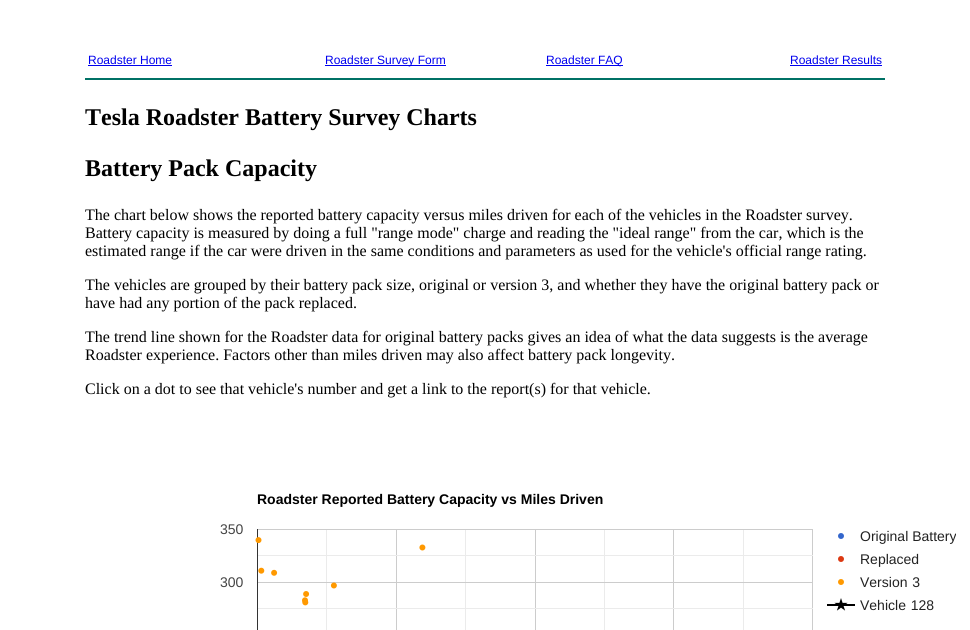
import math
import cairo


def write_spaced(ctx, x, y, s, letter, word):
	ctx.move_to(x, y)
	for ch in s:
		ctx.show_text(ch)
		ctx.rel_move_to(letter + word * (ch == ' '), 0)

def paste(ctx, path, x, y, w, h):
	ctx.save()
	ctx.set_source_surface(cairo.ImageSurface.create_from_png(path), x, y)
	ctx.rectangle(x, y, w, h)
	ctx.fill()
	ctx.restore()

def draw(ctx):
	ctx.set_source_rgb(1, 1, 1)
	ctx.paint()
	ctx.select_font_face('Liberation Sans')
	ctx.set_font_size(12)
	ctx.set_source_rgb(0, 0, 0.933)
	ctx.move_to(88, 64)
	ctx.show_text('Roadster Home')
	ctx.rectangle(88, 65, 84, 1)
	ctx.fill()
	ctx.rectangle(325, 65, 121, 1)
	ctx.fill()
	ctx.move_to(325, 64)
	ctx.show_text('Roadster Survey Form')
	ctx.rectangle(546, 65, 77, 1)
	ctx.fill()
	ctx.move_to(546, 64)
	ctx.show_text('Roadster FAQ')
	ctx.move_to(790, 64)
	ctx.show_text('Roadster Results')
	ctx.rectangle(790, 65, 92, 1)
	ctx.fill()
	ctx.set_source_rgb(0, 0.443, 0.396)
	ctx.rectangle(85, 78, 800, 2)
	ctx.fill()
	ctx.select_font_face('Liberation Serif', cairo.FONT_SLANT_NORMAL, cairo.FONT_WEIGHT_BOLD)
	ctx.set_font_size(24)
	ctx.set_source_rgb(0, 0, 0)
	ctx.move_to(85, 125)
	ctx.show_text('Tesla Roadster Battery Survey Charts')
	ctx.move_to(85, 176)
	ctx.show_text('Battery Pack Capacity')
	ctx.select_font_face('Liberation Serif')
	ctx.set_font_size(16)
	for x, y, s in [
		(85, 220, 'The chart below shows the reported battery capacity versus miles driven for each of the vehicles in the Roadster survey.'),
		(85, 238, 'Battery capacity is measured by doing a full "range mode" charge and reading the "ideal range" from the car, which is the'),
		(85, 256, 'estimated range if the car were driven in the same conditions and parameters as used for the vehicle\'s official range rating.'),
		(85, 290, 'The vehicles are grouped by their battery pack size, original or version 3, and whether they have the original battery pack or'),
		(85, 308, 'have had any portion of the pack replaced.'),
		(85, 342, 'The trend line shown for the Roadster data for original battery packs gives an idea of what the data suggests is the average'),
		(85, 360, 'Roadster experience. Factors other than miles driven may also affect battery pack longevity.'),
		(85, 394, 'Click on a dot to see that vehicle\'s number and get a link to the report(s) for that vehicle.'),
	]:
		ctx.move_to(x, y)
		ctx.show_text(s)
	ctx.select_font_face('Liberation Sans', cairo.FONT_SLANT_NORMAL, cairo.FONT_WEIGHT_BOLD)
	ctx.set_font_size(14)
	ctx.move_to(257, 504)
	ctx.show_text('Roadster Reported Battery Capacity vs Miles Driven')
	ctx.select_font_face('Liberation Sans')
	ctx.set_source_rgb(0.267, 0.267, 0.267)
	ctx.move_to(220, 534)
	ctx.show_text('350')
	paste(ctx, 'media/1.png', 255, 529, 600, 101)
	ctx.set_source_rgb(0.133, 0.133, 0.133)
	ctx.move_to(860, 541)
	ctx.show_text('Original Battery')
	ctx.move_to(860, 564)
	ctx.show_text('Replaced')
	ctx.set_source_rgb(0.267, 0.267, 0.267)
	ctx.move_to(220, 587)
	ctx.show_text('300')
	ctx.set_source_rgb(0.133, 0.133, 0.133)
	write_spaced(ctx, 860, 587, 'Version 3', 0, 1)
	write_spaced(ctx, 860, 610, 'Vehicle 128', 0, 1)


surface = cairo.ImageSurface(cairo.FORMAT_RGB24, 970, 630)
ctx = cairo.Context(surface)
options = cairo.FontOptions()
options.set_hint_metrics(cairo.HINT_METRICS_OFF)
options.set_hint_style(cairo.HINT_STYLE_NONE)
ctx.set_font_options(options)
ctx.set_miter_limit(4)
draw(ctx)
surface.write_to_png('image.png')
